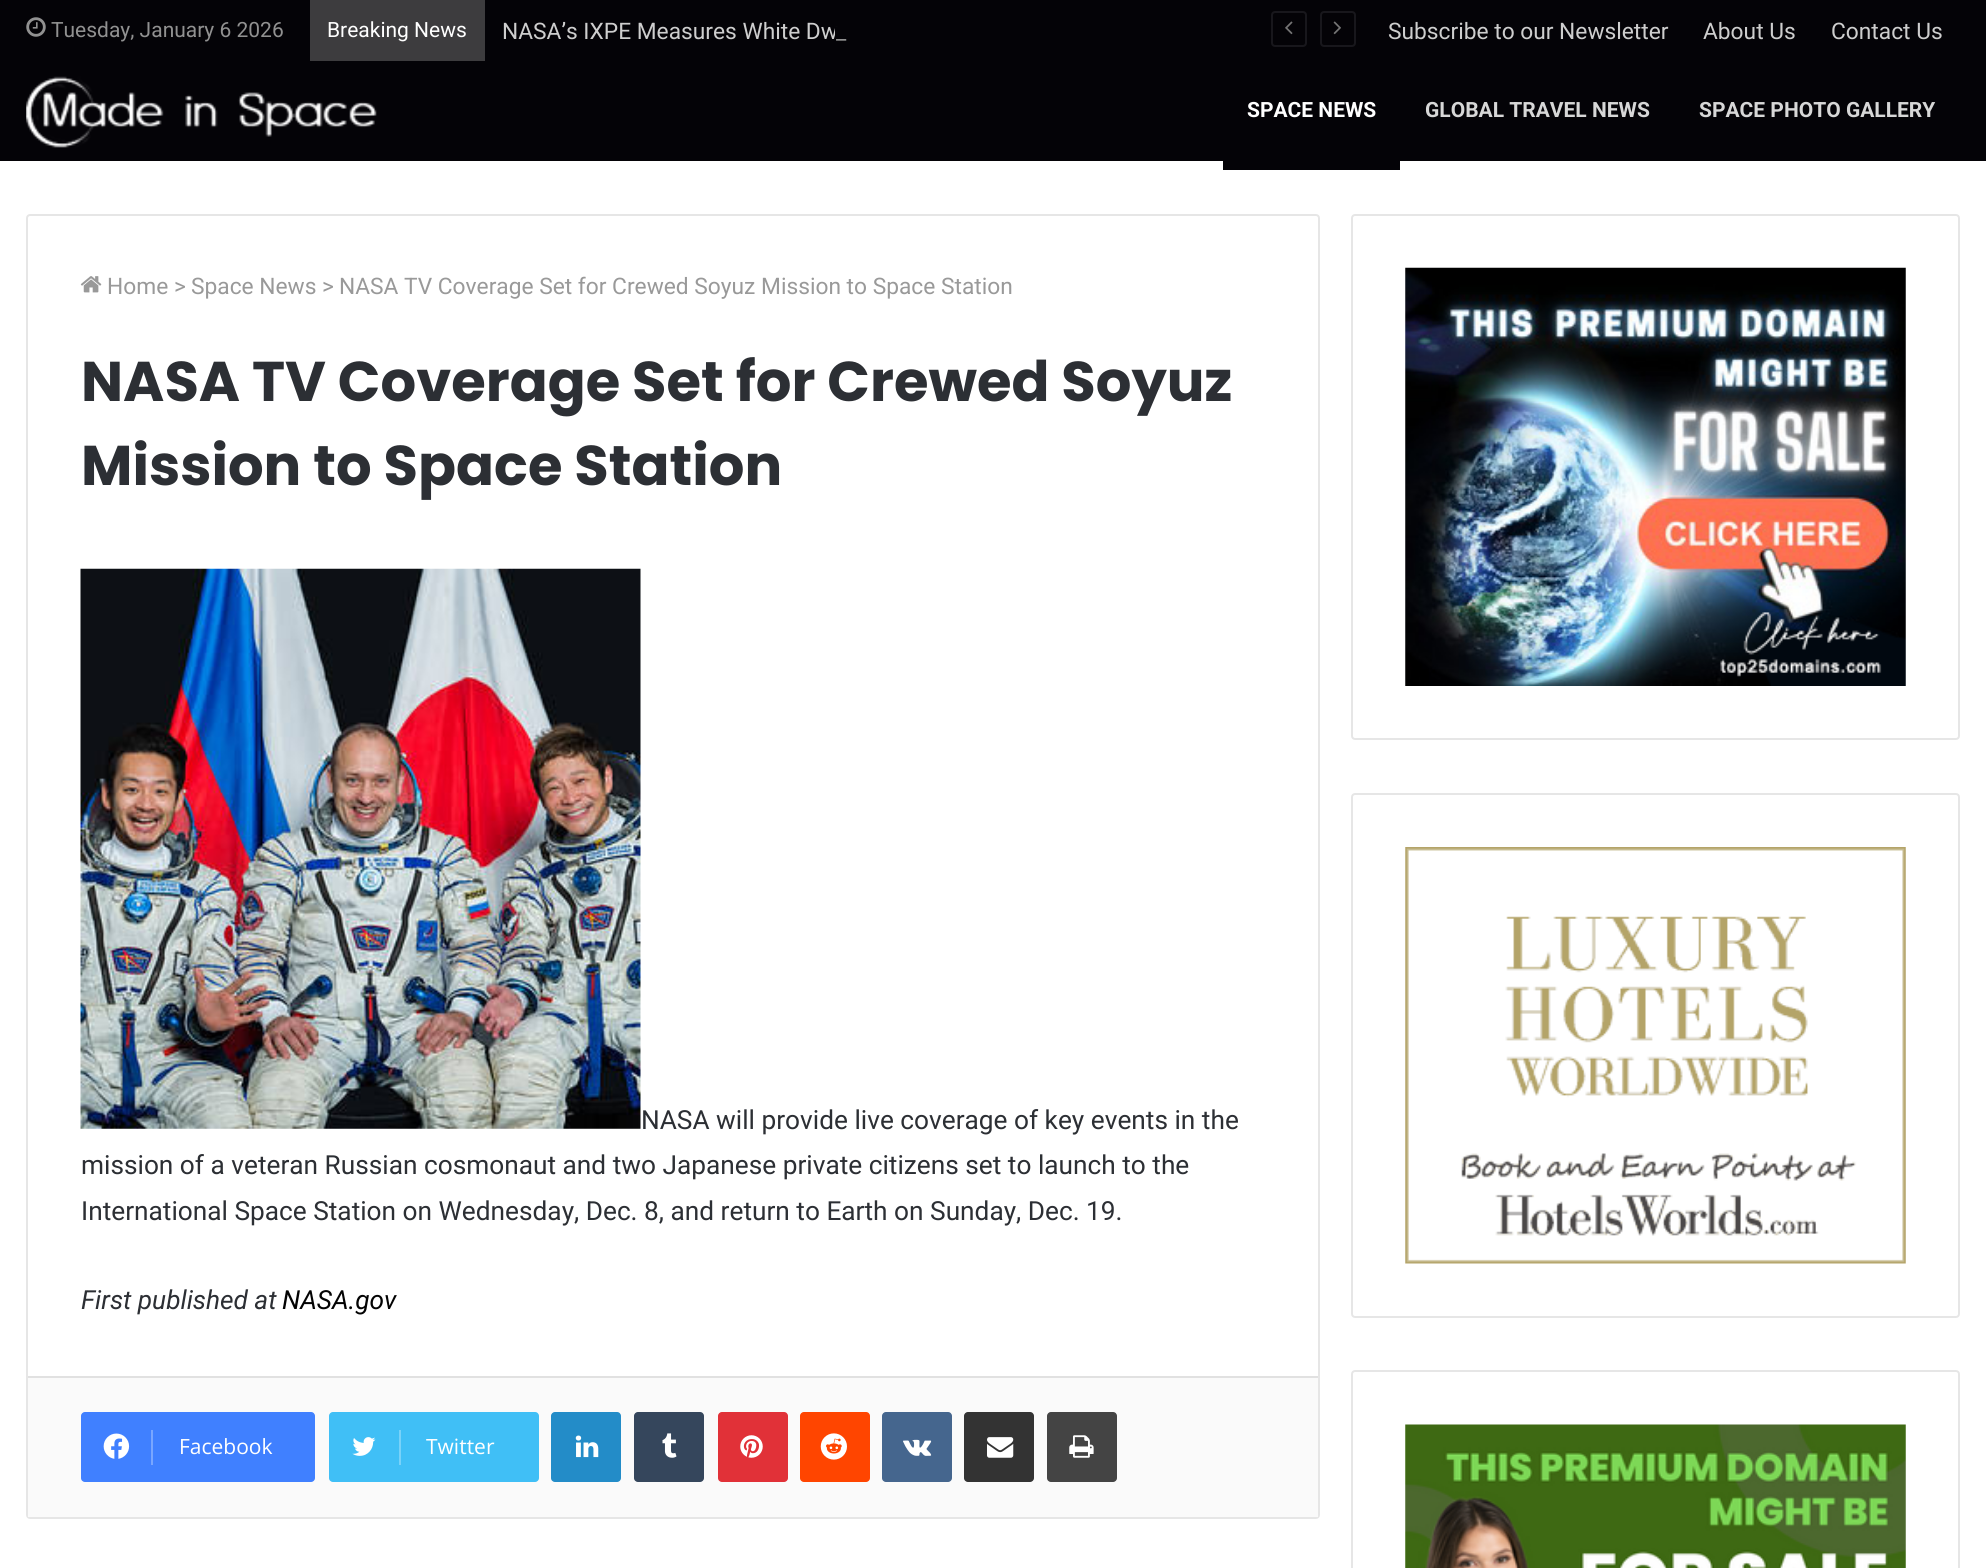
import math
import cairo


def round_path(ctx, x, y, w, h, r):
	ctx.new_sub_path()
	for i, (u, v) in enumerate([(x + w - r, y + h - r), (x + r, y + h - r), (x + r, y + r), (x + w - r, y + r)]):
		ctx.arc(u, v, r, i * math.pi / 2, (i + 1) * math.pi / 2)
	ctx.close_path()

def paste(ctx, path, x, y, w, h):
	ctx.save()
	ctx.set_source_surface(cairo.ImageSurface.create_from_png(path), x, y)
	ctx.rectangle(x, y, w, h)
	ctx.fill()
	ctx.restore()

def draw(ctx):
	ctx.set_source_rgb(1, 1, 1)
	ctx.paint()
	ctx.set_source_rgb(0.016, 0.012, 0.031)
	ctx.rectangle(0, 0, 1986, 161)
	ctx.fill()
	paste(ctx, 'media/1.png', 26, 17, 20, 20)
	ctx.select_font_face('Roboto')
	ctx.set_font_size(21)
	ctx.set_source_rgb(0.569, 0.569, 0.569)
	ctx.move_to(51, 37)
	ctx.show_text('Tuesday, January 6 2026')
	ctx.set_source_rgb(0.239, 0.235, 0.243)
	ctx.rectangle(310, 0, 175, 61)
	ctx.fill()
	ctx.set_source_rgb(1, 1, 1)
	ctx.move_to(327, 37)
	ctx.show_text('Breaking News')
	ctx.set_font_size(22.75)
	ctx.set_source_rgb(0.808, 0.808, 0.808)
	ctx.move_to(502, 39)
	ctx.show_text('NASA’s IXPE Measures White Dw')
	ctx.set_source_rgb(0.016, 0.012, 0.031)
	ctx.rectangle(835, 27, 3, 9)
	ctx.fill()
	ctx.set_source_rgb(0.569, 0.569, 0.569)
	ctx.move_to(836, 39)
	ctx.show_text('_')
	round_path(ctx, 1272, 12, 34, 34, 3)
	ctx.set_source_rgb(0.094, 0.09, 0.11)
	ctx.stroke()
	paste(ctx, 'media/2.png', 1285, 21, 8, 14)
	round_path(ctx, 1321, 12, 34, 34, 3)
	ctx.stroke()
	paste(ctx, 'media/3.png', 1333, 21, 8, 14)
	ctx.set_source_rgb(0.808, 0.808, 0.808)
	for x, y, s in [
		(1388, 39, 'Subscribe to our Newsletter'),
		(1703, 39, 'About Us'),
		(1831, 39, 'Contact Us'),
	]:
		ctx.move_to(x, y)
		ctx.show_text(s)
	paste(ctx, 'media/4.png', 26, 76, 351, 72)
	ctx.set_source_rgb(0.016, 0.012, 0.031)
	ctx.rectangle(1223, 161, 177, 9)
	ctx.fill()
	ctx.select_font_face('Roboto', cairo.FONT_SLANT_NORMAL, cairo.FONT_WEIGHT_BOLD)
	ctx.set_font_size(21)
	ctx.set_source_rgb(1, 1, 1)
	ctx.move_to(1247, 117)
	ctx.show_text('SPACE NEWS')
	ctx.set_source_rgb(0.843, 0.843, 0.843)
	ctx.move_to(1425, 117)
	ctx.show_text('GLOBAL TRAVEL NEWS')
	ctx.move_to(1699, 117)
	ctx.show_text('SPACE PHOTO GALLERY')
	round_path(ctx, 27, 215, 1292, 1303, 3)
	ctx.set_source_rgb(0.902, 0.902, 0.902)
	ctx.stroke()
	paste(ctx, 'media/5.png', 80, 276, 22, 17)
	ctx.select_font_face('Roboto')
	ctx.set_font_size(22.75)
	ctx.set_source_rgb(0.6, 0.6, 0.6)
	for x, y, s in [
		(107, 294, 'Home'),
		(174, 294, '>'),
		(191, 294, 'Space News'),
		(322, 294, '>'),
		(339, 294, 'NASA TV Coverage Set for Crewed Soyuz Mission to Space Station'),
	]:
		ctx.move_to(x, y)
		ctx.show_text(s)
	ctx.select_font_face('Poppins', cairo.FONT_SLANT_NORMAL, cairo.FONT_WEIGHT_BOLD)
	ctx.set_font_size(56)
	ctx.set_source_rgb(0.173, 0.184, 0.204)
	ctx.move_to(81, 401)
	ctx.show_text('NASA TV Coverage Set for Crewed Soyuz')
	ctx.move_to(81, 485)
	ctx.show_text('Mission to Space Station')
	paste(ctx, 'media/6.png', 80, 568, 561, 561)
	ctx.select_font_face('Roboto')
	ctx.set_font_size(26.25)
	for x, y, s in [
		(641, 1129, 'NASA will provide live coverage of key events in the'),
		(81, 1174, 'mission of a veteran Russian cosmonaut and two Japanese private citizens set to launch to the'),
		(81, 1220, 'International Space Station on Wednesday, Dec. 8, and return to Earth on Sunday, Dec. 19.'),
	]:
		ctx.move_to(x, y)
		ctx.show_text(s)
	ctx.select_font_face('Roboto', cairo.FONT_SLANT_ITALIC)
	ctx.move_to(81, 1309)
	ctx.show_text('First published at')
	ctx.set_source_rgb(0.012, 0.012, 0.012)
	ctx.move_to(282, 1309)
	ctx.show_text('NASA.gov')
	ctx.set_source_rgb(0.98, 0.98, 0.98)
	ctx.rectangle(28, 1378, 1290, 139)
	ctx.fill()
	ctx.set_source_rgb(0.882, 0.882, 0.882)
	ctx.rectangle(28, 1376, 1290, 2)
	ctx.fill()
	ctx.set_source_rgb(0.251, 0.502, 1)
	round_path(ctx, 81, 1412, 234, 70, 4)
	ctx.fill()
	paste(ctx, 'media/7.png', 103, 1433, 27, 26)
	ctx.set_source_rgb(0.475, 0.651, 1)
	ctx.rectangle(151, 1430, 2, 35)
	ctx.fill()
	ctx.select_font_face('Open Sans')
	ctx.set_font_size(21)
	ctx.set_source_rgb(1, 1, 1)
	ctx.move_to(179, 1454)
	ctx.show_text('Facebook')
	ctx.set_source_rgb(0.251, 0.749, 0.961)
	round_path(ctx, 329, 1412, 210, 70, 4)
	ctx.fill()
	paste(ctx, 'media/8.png', 352, 1437, 24, 19)
	ctx.set_source_rgb(0.475, 0.824, 0.973)
	ctx.rectangle(399, 1430, 2, 35)
	ctx.fill()
	ctx.set_source_rgb(1, 1, 1)
	ctx.move_to(426, 1454)
	ctx.show_text('Twitter')
	ctx.set_source_rgb(0.137, 0.549, 0.784)
	round_path(ctx, 551, 1412, 70, 70, 4)
	ctx.fill()
	paste(ctx, 'media/9.png', 575, 1435, 24, 23)
	ctx.set_source_rgb(0.208, 0.275, 0.361)
	round_path(ctx, 634, 1412, 70, 70, 4)
	ctx.fill()
	paste(ctx, 'media/10.png', 662, 1433, 15, 25)
	ctx.set_source_rgb(0.882, 0.192, 0.22)
	round_path(ctx, 718, 1412, 70, 70, 4)
	ctx.fill()
	paste(ctx, 'media/11.png', 740, 1435, 23, 23)
	ctx.set_source_rgb(1, 0.271, 0)
	round_path(ctx, 800, 1412, 70, 70, 4)
	ctx.fill()
	paste(ctx, 'media/12.png', 820, 1433, 27, 27)
	ctx.set_source_rgb(0.271, 0.4, 0.557)
	round_path(ctx, 882, 1412, 70, 70, 4)
	ctx.fill()
	paste(ctx, 'media/13.png', 903, 1439, 29, 17)
	ctx.set_source_rgb(0.2, 0.2, 0.2)
	round_path(ctx, 964, 1412, 70, 70, 4)
	ctx.fill()
	paste(ctx, 'media/14.png', 987, 1437, 27, 21)
	ctx.set_source_rgb(0.267, 0.267, 0.267)
	round_path(ctx, 1047, 1412, 70, 70, 4)
	ctx.fill()
	paste(ctx, 'media/15.png', 1069, 1435, 25, 23)
	round_path(ctx, 1352, 215, 607, 524, 3)
	ctx.set_source_rgb(0.902, 0.902, 0.902)
	ctx.stroke()
	paste(ctx, 'media/16.png', 1405, 267, 501, 419)
	round_path(ctx, 1352, 794, 607, 523, 3)
	ctx.stroke()
	paste(ctx, 'media/17.png', 1405, 847, 501, 417)
	round_path(ctx, 1352, 1371, 607, 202, 3)
	ctx.stroke()
	paste(ctx, 'media/18.png', 1405, 1424, 501, 144)


surface = cairo.ImageSurface(cairo.FORMAT_RGB24, 1986, 1568)
ctx = cairo.Context(surface)
options = cairo.FontOptions()
options.set_hint_metrics(cairo.HINT_METRICS_OFF)
options.set_hint_style(cairo.HINT_STYLE_NONE)
ctx.set_font_options(options)
ctx.set_miter_limit(4)
draw(ctx)
surface.write_to_png('image.png')
